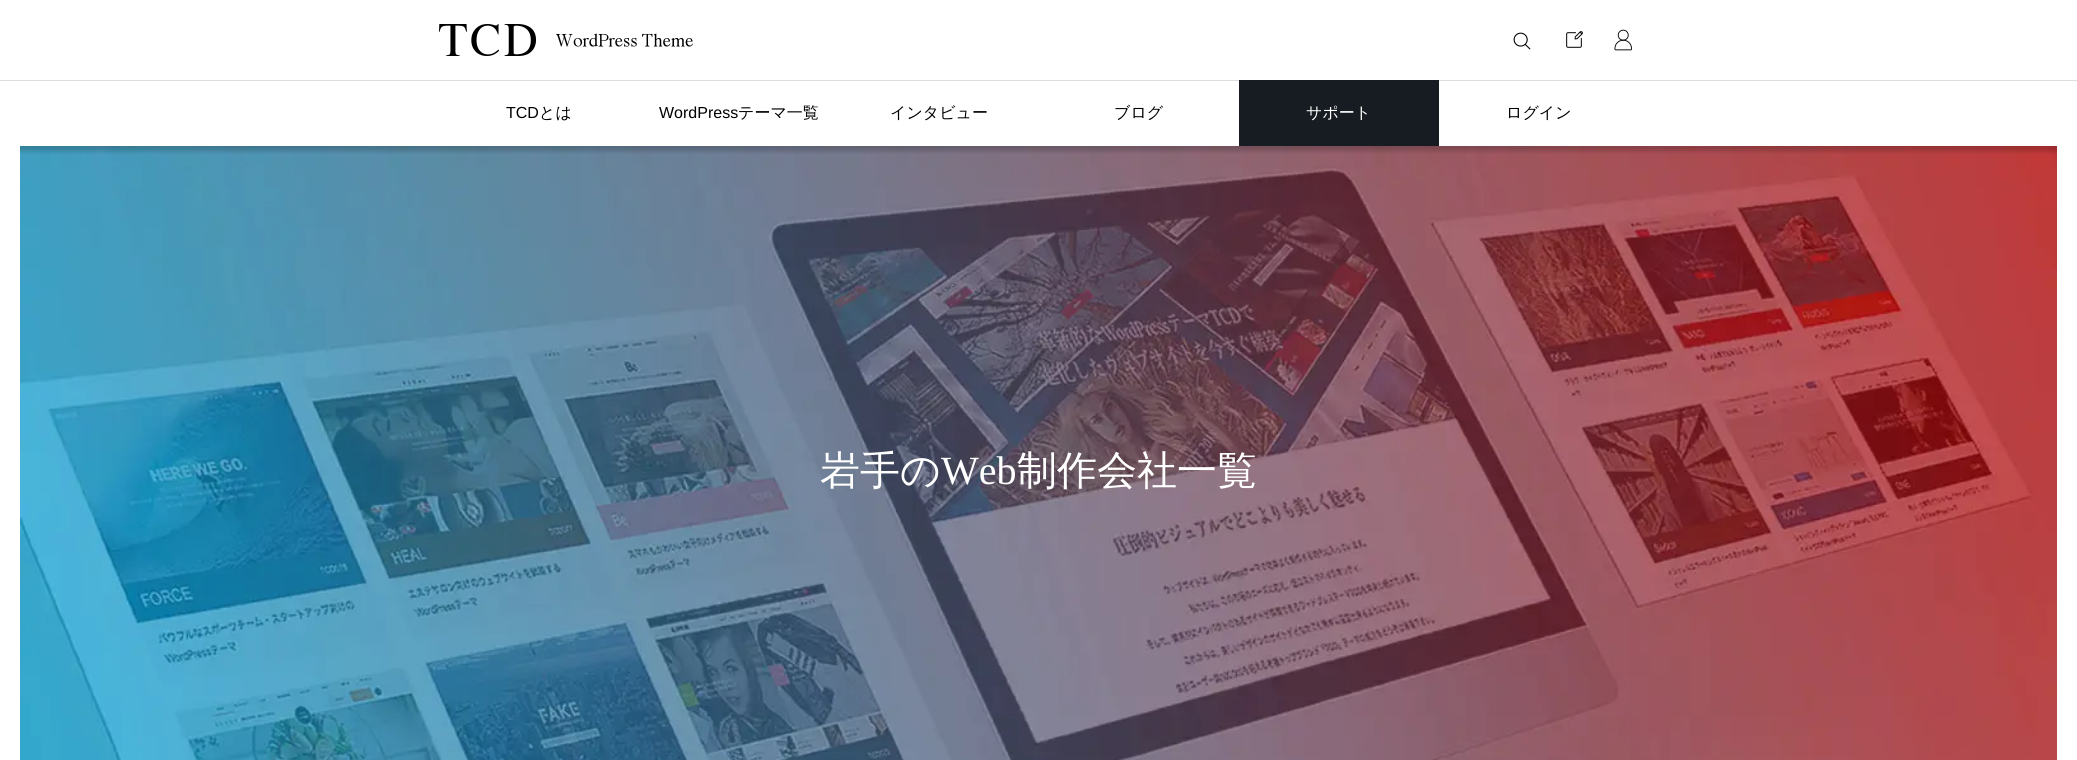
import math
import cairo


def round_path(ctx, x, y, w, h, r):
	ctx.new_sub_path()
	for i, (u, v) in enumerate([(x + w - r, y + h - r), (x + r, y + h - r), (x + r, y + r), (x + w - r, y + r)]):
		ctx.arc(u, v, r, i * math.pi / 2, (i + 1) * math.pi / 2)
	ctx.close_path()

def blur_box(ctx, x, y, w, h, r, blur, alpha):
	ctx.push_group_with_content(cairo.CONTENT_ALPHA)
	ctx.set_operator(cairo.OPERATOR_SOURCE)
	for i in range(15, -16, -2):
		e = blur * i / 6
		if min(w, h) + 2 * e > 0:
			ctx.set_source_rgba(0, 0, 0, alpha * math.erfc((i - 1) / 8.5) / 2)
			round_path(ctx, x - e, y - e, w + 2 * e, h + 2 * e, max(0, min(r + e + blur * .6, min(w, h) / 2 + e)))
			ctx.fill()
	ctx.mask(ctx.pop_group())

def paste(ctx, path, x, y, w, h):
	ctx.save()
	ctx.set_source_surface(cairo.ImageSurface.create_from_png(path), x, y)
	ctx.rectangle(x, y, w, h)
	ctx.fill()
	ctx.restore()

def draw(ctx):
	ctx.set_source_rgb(1, 1, 1)
	ctx.paint()
	paste(ctx, 'media/5.png', 20, 146, 2037, 614)
	ctx.save()
	ctx.rectangle(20, 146, 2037, 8)
	ctx.clip()
	ctx.set_source_rgb(0, 0, 0)
	blur_box(ctx, -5, -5, 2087, 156, 0, 2.5, 0.2)
	ctx.restore()
	paste(ctx, 'media/1.png', 439, 24, 254, 32)
	paste(ctx, 'media/2.png', 1513, 32, 18, 18)
	paste(ctx, 'media/3.png', 1566, 31, 17, 17)
	paste(ctx, 'media/4.png', 1614, 29, 18, 22)
	ctx.set_source_rgb(0.867, 0.867, 0.867)
	ctx.rectangle(0, 80, 2077, 1)
	ctx.fill()
	ctx.select_font_face('Liberation Sans')
	ctx.set_font_size(16)
	ctx.set_source_rgb(0, 0, 0)
	ctx.move_to(506, 118)
	ctx.show_text('TCD')
	ctx.select_font_face('WenQuanYi Zen Hei Medium')
	ctx.move_to(539, 118)
	ctx.show_text('とは')
	ctx.select_font_face('Liberation Sans')
	ctx.move_to(659, 118)
	ctx.show_text('WordPress')
	ctx.select_font_face('WenQuanYi Zen Hei Medium')
	for x, y, s in [
		(738, 118, 'テーマ一覧'),
		(890, 118, 'インタビュー'),
		(1114, 118, 'ブログ'),
	]:
		ctx.move_to(x, y)
		ctx.show_text(s)
	ctx.set_source_rgb(0.086, 0.11, 0.129)
	ctx.rectangle(1239, 80, 200, 66)
	ctx.fill()
	ctx.set_source_rgb(1, 1, 1)
	ctx.move_to(1306, 118)
	ctx.show_text('サポート')
	ctx.set_source_rgb(0, 0, 0)
	ctx.move_to(1506, 118)
	ctx.show_text('ログイン')
	ctx.set_source_rgb(1, 1, 1)
	ctx.rectangle(0, 146, 20, 9)
	ctx.fill()
	ctx.rectangle(2057, 146, 20, 9)
	ctx.fill()
	ctx.set_font_size(40)
	ctx.move_to(820, 484)
	ctx.show_text('岩手の')
	ctx.select_font_face('Liberation Serif')
	ctx.move_to(941, 484)
	ctx.show_text('Web')
	ctx.select_font_face('WenQuanYi Zen Hei Medium')
	ctx.move_to(1017, 484)
	ctx.show_text('制作会社一覧')


surface = cairo.ImageSurface(cairo.FORMAT_RGB24, 2077, 760)
ctx = cairo.Context(surface)
options = cairo.FontOptions()
options.set_hint_metrics(cairo.HINT_METRICS_OFF)
options.set_hint_style(cairo.HINT_STYLE_NONE)
ctx.set_font_options(options)
ctx.set_miter_limit(4)
draw(ctx)
surface.write_to_png('image.png')
